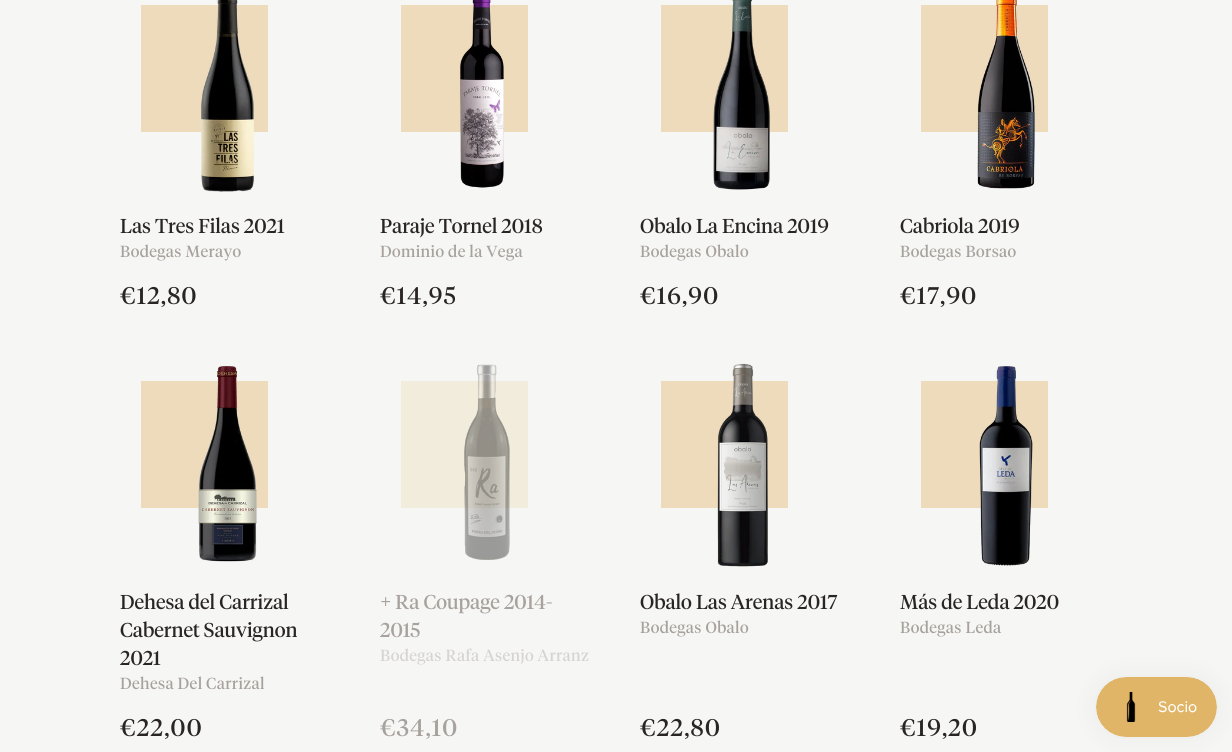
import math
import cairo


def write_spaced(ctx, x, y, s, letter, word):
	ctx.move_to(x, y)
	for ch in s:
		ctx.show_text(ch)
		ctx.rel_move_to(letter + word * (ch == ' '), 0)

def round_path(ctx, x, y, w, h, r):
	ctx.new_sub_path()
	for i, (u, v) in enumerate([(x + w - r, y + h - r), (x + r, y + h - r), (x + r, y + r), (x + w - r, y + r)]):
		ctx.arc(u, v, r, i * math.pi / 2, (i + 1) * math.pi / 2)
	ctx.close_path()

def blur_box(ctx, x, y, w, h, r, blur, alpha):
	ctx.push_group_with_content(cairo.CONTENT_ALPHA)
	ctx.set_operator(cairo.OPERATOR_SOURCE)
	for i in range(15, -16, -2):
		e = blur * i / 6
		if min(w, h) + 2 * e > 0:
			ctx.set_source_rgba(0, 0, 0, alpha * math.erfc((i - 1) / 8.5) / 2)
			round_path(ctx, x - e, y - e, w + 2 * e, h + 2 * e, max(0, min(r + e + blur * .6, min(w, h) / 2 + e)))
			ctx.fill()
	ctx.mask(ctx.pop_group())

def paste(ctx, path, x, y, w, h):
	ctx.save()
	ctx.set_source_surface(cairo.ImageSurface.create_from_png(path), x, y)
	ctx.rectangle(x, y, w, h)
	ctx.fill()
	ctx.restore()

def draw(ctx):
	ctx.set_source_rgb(0.961, 0.961, 0.957)
	ctx.paint()
	ctx.set_source_rgb(0.929, 0.859, 0.737)
	ctx.rectangle(141, 5, 127, 127)
	ctx.fill()
	paste(ctx, 'media/1.png', 201, 0, 54, 192)
	ctx.select_font_face('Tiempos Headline')
	ctx.set_font_size(20)
	ctx.set_source_rgb(0.161, 0.145, 0.141)
	ctx.move_to(120, 233)
	ctx.show_text('Las Tres Filas 2021')
	ctx.set_font_size(16)
	ctx.set_source_rgb(0.659, 0.635, 0.62)
	write_spaced(ctx, 120, 257, 'Bodegas Merayo', 0.4, 0)
	ctx.set_font_size(24)
	ctx.set_source_rgb(0.161, 0.145, 0.141)
	write_spaced(ctx, 120, 304, '€12,80', 1.25, 0)
	ctx.set_source_rgb(0.929, 0.859, 0.737)
	ctx.rectangle(401, 5, 127, 127)
	ctx.fill()
	paste(ctx, 'media/2.png', 460, 0, 44, 188)
	ctx.set_font_size(20)
	ctx.set_source_rgb(0.161, 0.145, 0.141)
	ctx.move_to(380, 233)
	ctx.show_text('Paraje Tornel 2018')
	ctx.set_font_size(16)
	ctx.set_source_rgb(0.659, 0.635, 0.62)
	write_spaced(ctx, 380, 257, 'Dominio de la Vega', 0.4, 0)
	ctx.set_font_size(24)
	ctx.set_source_rgb(0.161, 0.145, 0.141)
	write_spaced(ctx, 380, 304, '€14,95', 1.25, 0)
	ctx.set_source_rgb(0.929, 0.859, 0.737)
	ctx.rectangle(661, 5, 127, 127)
	ctx.fill()
	paste(ctx, 'media/3.png', 713, 0, 57, 190)
	ctx.set_font_size(20)
	ctx.set_source_rgb(0.161, 0.145, 0.141)
	ctx.move_to(640, 233)
	ctx.show_text('Obalo La Encina 2019')
	ctx.set_font_size(16)
	ctx.set_source_rgb(0.659, 0.635, 0.62)
	write_spaced(ctx, 640, 257, 'Bodegas Obalo', 0.4, 0)
	ctx.set_font_size(24)
	ctx.set_source_rgb(0.161, 0.145, 0.141)
	write_spaced(ctx, 640, 304, '€16,90', 1.25, 0)
	ctx.set_source_rgb(0.929, 0.859, 0.737)
	ctx.rectangle(921, 5, 127, 127)
	ctx.fill()
	paste(ctx, 'media/4.png', 977, 0, 58, 189)
	ctx.set_font_size(20)
	ctx.set_source_rgb(0.161, 0.145, 0.141)
	ctx.move_to(900, 233)
	ctx.show_text('Cabriola 2019')
	ctx.set_font_size(16)
	ctx.set_source_rgb(0.659, 0.635, 0.62)
	write_spaced(ctx, 900, 257, 'Bodegas Borsao', 0.4, 0)
	ctx.set_font_size(24)
	ctx.set_source_rgb(0.161, 0.145, 0.141)
	write_spaced(ctx, 900, 304, '€17,90', 1.25, 0)
	ctx.set_source_rgb(0.929, 0.859, 0.737)
	ctx.rectangle(141, 381, 127, 127)
	ctx.fill()
	paste(ctx, 'media/5.png', 198, 366, 59, 196)
	ctx.set_font_size(20)
	ctx.set_source_rgb(0.161, 0.145, 0.141)
	for x, y, s in [
		(120, 609, 'Dehesa del Carrizal'),
		(120, 637, 'Cabernet Sauvignon'),
		(120, 665, '2021'),
	]:
		ctx.move_to(x, y)
		ctx.show_text(s)
	ctx.set_font_size(16)
	ctx.set_source_rgb(0.659, 0.635, 0.62)
	write_spaced(ctx, 120, 689, 'Dehesa Del Carrizal', 0.4, 0)
	ctx.set_font_size(24)
	ctx.set_source_rgb(0.161, 0.145, 0.141)
	write_spaced(ctx, 120, 736, '€22,00', 1.25, 0)
	ctx.set_source_rgb(0.949, 0.922, 0.867)
	ctx.rectangle(401, 381, 127, 127)
	ctx.fill()
	paste(ctx, 'media/6.png', 464, 364, 46, 196)
	ctx.set_font_size(20)
	ctx.set_source_rgb(0.659, 0.635, 0.62)
	ctx.move_to(380, 609)
	ctx.show_text('+ Ra Coupage 2014-')
	ctx.move_to(380, 637)
	ctx.show_text('2015')
	ctx.set_font_size(16)
	ctx.set_source_rgb(0.839, 0.831, 0.824)
	write_spaced(ctx, 380, 661, 'Bodegas Rafa Asenjo Arranz', 0.4, 0)
	ctx.set_font_size(24)
	ctx.set_source_rgb(0.659, 0.635, 0.62)
	write_spaced(ctx, 380, 736, '€34,10', 1.25, 0)
	ctx.set_source_rgb(0.929, 0.859, 0.737)
	ctx.rectangle(661, 381, 127, 127)
	ctx.fill()
	paste(ctx, 'media/7.png', 717, 363, 51, 204)
	ctx.set_font_size(20)
	ctx.set_source_rgb(0.161, 0.145, 0.141)
	ctx.move_to(640, 609)
	ctx.show_text('Obalo Las Arenas 2017')
	ctx.set_font_size(16)
	ctx.set_source_rgb(0.659, 0.635, 0.62)
	write_spaced(ctx, 640, 633, 'Bodegas Obalo', 0.4, 0)
	ctx.set_font_size(24)
	ctx.set_source_rgb(0.161, 0.145, 0.141)
	write_spaced(ctx, 640, 736, '€22,80', 1.25, 0)
	ctx.set_source_rgb(0.929, 0.859, 0.737)
	ctx.rectangle(921, 381, 127, 127)
	ctx.fill()
	paste(ctx, 'media/8.png', 979, 366, 54, 200)
	ctx.set_font_size(20)
	ctx.set_source_rgb(0.161, 0.145, 0.141)
	ctx.move_to(900, 609)
	ctx.show_text('Más de Leda 2020')
	ctx.set_font_size(16)
	ctx.set_source_rgb(0.659, 0.635, 0.62)
	write_spaced(ctx, 900, 633, 'Bodegas Leda', 0.4, 0)
	ctx.set_font_size(24)
	ctx.set_source_rgb(0.161, 0.145, 0.141)
	write_spaced(ctx, 900, 736, '€19,20', 1.25, 0)
	ctx.set_source_rgb(0, 0, 0)
	blur_box(ctx, 1096, 677, 121, 60, 30, 12.5, 0.05)
	paste(ctx, 'media/9.png', 1096, 677, 121, 60)


surface = cairo.ImageSurface(cairo.FORMAT_RGB24, 1232, 752)
ctx = cairo.Context(surface)
options = cairo.FontOptions()
options.set_hint_metrics(cairo.HINT_METRICS_OFF)
options.set_hint_style(cairo.HINT_STYLE_NONE)
ctx.set_font_options(options)
ctx.set_miter_limit(4)
draw(ctx)
surface.write_to_png('image.png')
